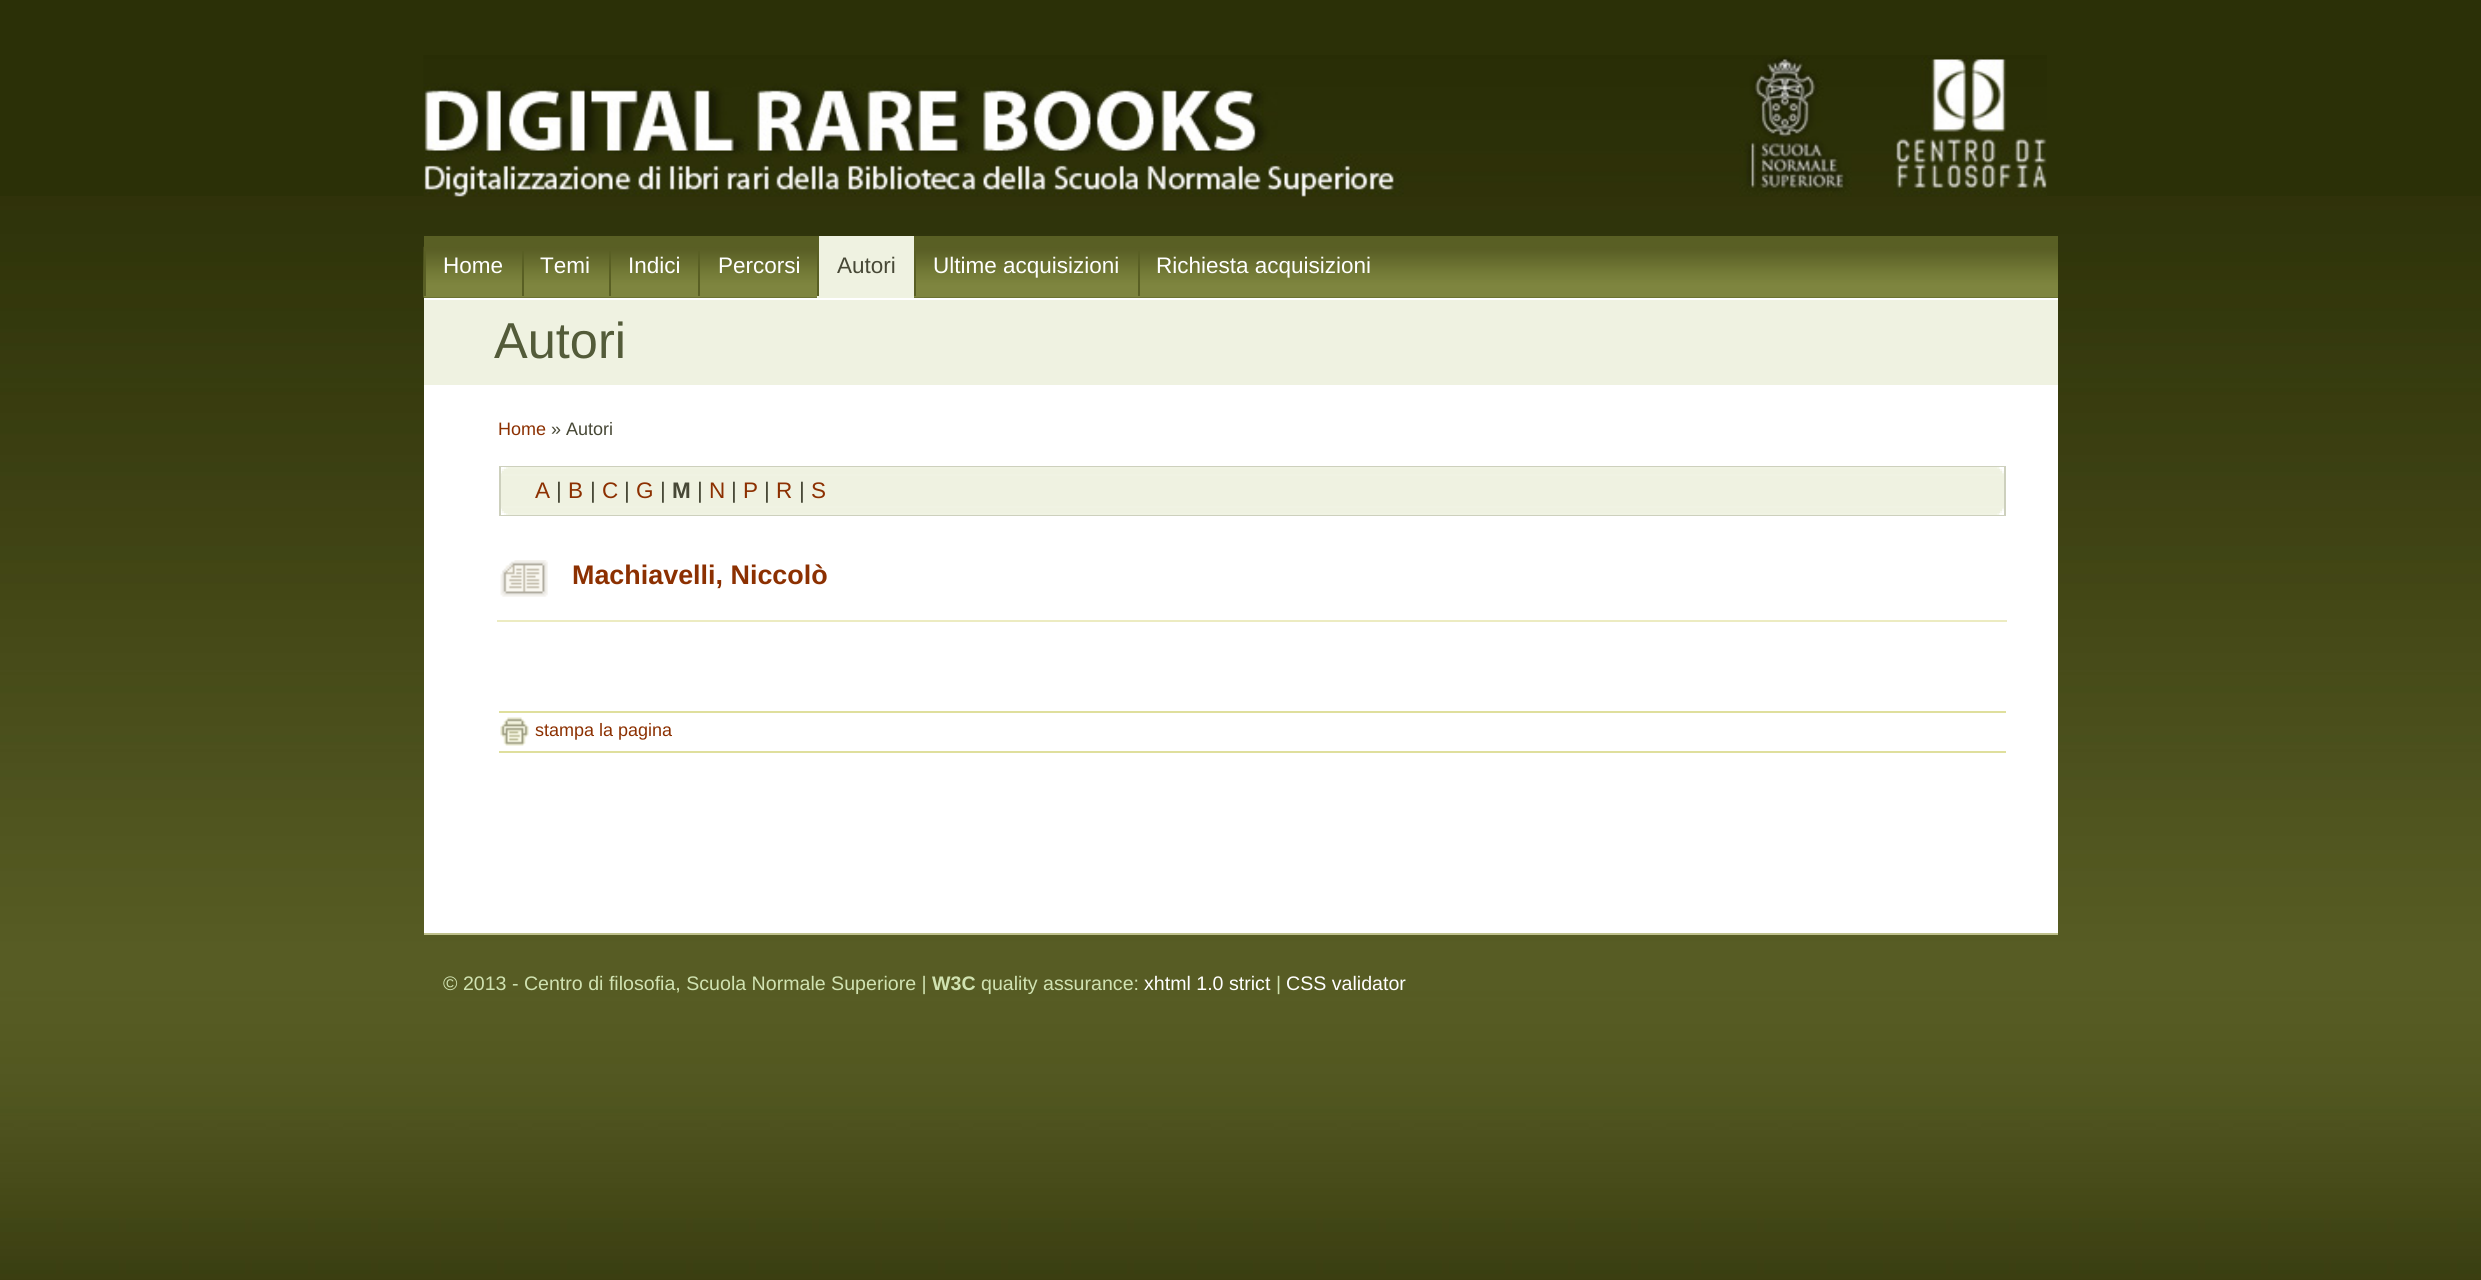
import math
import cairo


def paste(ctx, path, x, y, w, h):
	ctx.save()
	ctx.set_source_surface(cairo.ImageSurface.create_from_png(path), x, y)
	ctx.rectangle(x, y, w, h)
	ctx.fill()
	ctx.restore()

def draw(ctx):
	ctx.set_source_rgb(0.169, 0.188, 0.031)
	ctx.paint()
	paste(ctx, 'media/1.png', 0, 196, 2481, 1084)
	paste(ctx, 'media/2.png', 423, 55, 1624, 142)
	ctx.set_source_rgb(0.349, 0.373, 0.141)
	ctx.rectangle(424, 236, 1634, 62)
	ctx.fill()
	paste(ctx, 'media/3.png', 423, 246, 1635, 52)
	ctx.rectangle(424, 251, 2, 45)
	ctx.fill()
	ctx.select_font_face('Liberation Sans')
	ctx.set_font_size(22.5)
	ctx.set_source_rgb(1, 1, 1)
	ctx.move_to(443, 273)
	ctx.show_text('Home')
	ctx.set_source_rgb(0.349, 0.373, 0.141)
	ctx.rectangle(522, 251, 2, 45)
	ctx.fill()
	ctx.set_source_rgb(1, 1, 1)
	ctx.move_to(540, 273)
	ctx.show_text('Temi')
	ctx.set_source_rgb(0.349, 0.373, 0.141)
	ctx.rectangle(609, 251, 2, 45)
	ctx.fill()
	ctx.set_source_rgb(1, 1, 1)
	ctx.move_to(628, 273)
	ctx.show_text('Indici')
	ctx.set_source_rgb(0.349, 0.373, 0.141)
	ctx.rectangle(698, 251, 2, 45)
	ctx.fill()
	ctx.set_source_rgb(1, 1, 1)
	ctx.move_to(718, 273)
	ctx.show_text('Percorsi')
	ctx.set_source_rgb(0.937, 0.949, 0.882)
	ctx.rectangle(817, 236, 97, 62)
	ctx.fill()
	ctx.set_source_rgb(0.349, 0.373, 0.141)
	ctx.rectangle(817, 236, 2, 60)
	ctx.fill()
	ctx.set_source_rgb(0.278, 0.282, 0.212)
	ctx.move_to(837, 273)
	ctx.show_text('Autori')
	ctx.set_source_rgb(0.349, 0.373, 0.141)
	ctx.rectangle(914, 251, 2, 45)
	ctx.fill()
	ctx.set_source_rgb(1, 1, 1)
	ctx.move_to(933, 273)
	ctx.show_text('Ultime acquisizioni')
	ctx.set_source_rgb(0.349, 0.373, 0.141)
	ctx.rectangle(1138, 251, 2, 45)
	ctx.fill()
	ctx.set_source_rgb(1, 1, 1)
	ctx.move_to(1156, 273)
	ctx.show_text('Richiesta acquisizioni')
	ctx.set_source_rgb(0.937, 0.949, 0.882)
	ctx.rectangle(424, 300, 1634, 85)
	ctx.fill()
	ctx.set_source_rgb(1, 1, 1)
	ctx.rectangle(424, 298, 1634, 2)
	ctx.fill()
	ctx.set_font_size(50.5)
	ctx.set_source_rgb(0.325, 0.357, 0.224)
	ctx.move_to(494, 358)
	ctx.show_text('Autori')
	ctx.set_source_rgb(1, 1, 1)
	ctx.rectangle(424, 385, 1634, 548)
	ctx.fill()
	ctx.set_font_size(18)
	ctx.set_source_rgb(0.549, 0.188, 0.004)
	ctx.move_to(498, 435)
	ctx.show_text('Home')
	ctx.set_source_rgb(0.278, 0.282, 0.212)
	ctx.move_to(551, 435)
	ctx.show_text('» Autori')
	ctx.set_source_rgb(0.937, 0.949, 0.882)
	ctx.rectangle(501, 476, 1503, 30)
	ctx.fill()
	ctx.rectangle(500, 467, 1505, 48)
	ctx.set_source_rgb(0.804, 0.816, 0.741)
	ctx.stroke()
	ctx.set_source_rgb(1, 1, 1)
	ctx.rectangle(501, 467, 1503, 1)
	ctx.fill()
	ctx.set_source_rgb(0.98, 0.984, 0.965)
	ctx.rectangle(504, 467, 1496, 2)
	ctx.fill()
	ctx.set_source_rgb(0.953, 0.961, 0.914)
	ctx.rectangle(506, 467, 1493, 2)
	ctx.fill()
	ctx.set_source_rgb(0.941, 0.953, 0.89)
	ctx.rectangle(508, 467, 1489, 2)
	ctx.fill()
	ctx.set_source_rgb(0.969, 0.976, 0.941)
	ctx.rectangle(502, 469, 1500, 2)
	ctx.fill()
	ctx.set_source_rgb(0.937, 0.949, 0.882)
	ctx.rectangle(504, 469, 1496, 2)
	ctx.fill()
	ctx.set_source_rgb(0.98, 0.984, 0.965)
	ctx.rectangle(501, 471, 1503, 2)
	ctx.fill()
	ctx.set_source_rgb(0.937, 0.949, 0.882)
	ctx.rectangle(502, 471, 1500, 2)
	ctx.fill()
	ctx.set_source_rgb(0.953, 0.961, 0.914)
	ctx.rectangle(501, 473, 1503, 1)
	ctx.fill()
	ctx.set_source_rgb(0.937, 0.949, 0.882)
	ctx.rectangle(502, 473, 1500, 1)
	ctx.fill()
	ctx.set_source_rgb(0.941, 0.953, 0.89)
	ctx.rectangle(501, 474, 1503, 2)
	ctx.fill()
	ctx.set_font_size(22.5)
	ctx.set_source_rgb(0.549, 0.188, 0.004)
	ctx.move_to(535, 498)
	ctx.show_text('A')
	ctx.set_source_rgb(0.278, 0.282, 0.212)
	ctx.move_to(556, 498)
	ctx.show_text('|')
	ctx.set_source_rgb(0.549, 0.188, 0.004)
	ctx.move_to(568, 498)
	ctx.show_text('B')
	ctx.set_source_rgb(0.278, 0.282, 0.212)
	ctx.move_to(590, 498)
	ctx.show_text('|')
	ctx.set_source_rgb(0.549, 0.188, 0.004)
	ctx.move_to(602, 498)
	ctx.show_text('C')
	ctx.set_source_rgb(0.278, 0.282, 0.212)
	ctx.move_to(624, 498)
	ctx.show_text('|')
	ctx.set_source_rgb(0.549, 0.188, 0.004)
	ctx.move_to(636, 498)
	ctx.show_text('G')
	ctx.set_source_rgb(0.278, 0.282, 0.212)
	ctx.move_to(660, 498)
	ctx.show_text('|')
	ctx.select_font_face('Liberation Sans', cairo.FONT_SLANT_NORMAL, cairo.FONT_WEIGHT_BOLD)
	ctx.move_to(672, 498)
	ctx.show_text('M')
	ctx.select_font_face('Liberation Sans')
	ctx.move_to(697, 498)
	ctx.show_text('|')
	ctx.set_source_rgb(0.549, 0.188, 0.004)
	ctx.move_to(709, 498)
	ctx.show_text('N')
	ctx.set_source_rgb(0.278, 0.282, 0.212)
	ctx.move_to(731, 498)
	ctx.show_text('|')
	ctx.set_source_rgb(0.549, 0.188, 0.004)
	ctx.move_to(743, 498)
	ctx.show_text('P')
	ctx.set_source_rgb(0.278, 0.282, 0.212)
	ctx.move_to(764, 498)
	ctx.show_text('|')
	ctx.set_source_rgb(0.549, 0.188, 0.004)
	ctx.move_to(776, 498)
	ctx.show_text('R')
	ctx.set_source_rgb(0.278, 0.282, 0.212)
	ctx.move_to(799, 498)
	ctx.show_text('|')
	ctx.set_source_rgb(0.549, 0.188, 0.004)
	ctx.move_to(811, 498)
	ctx.show_text('S')
	ctx.set_source_rgb(1, 1, 1)
	ctx.rectangle(501, 514, 1503, 1)
	ctx.fill()
	ctx.set_source_rgb(0.941, 0.953, 0.89)
	ctx.rectangle(501, 506, 1503, 2)
	ctx.fill()
	ctx.set_source_rgb(0.953, 0.961, 0.914)
	ctx.rectangle(501, 508, 1503, 1)
	ctx.fill()
	ctx.set_source_rgb(0.937, 0.949, 0.882)
	ctx.rectangle(502, 508, 1500, 1)
	ctx.fill()
	ctx.set_source_rgb(0.98, 0.984, 0.965)
	ctx.rectangle(501, 509, 1503, 2)
	ctx.fill()
	ctx.set_source_rgb(0.937, 0.949, 0.882)
	ctx.rectangle(502, 509, 1500, 2)
	ctx.fill()
	ctx.set_source_rgb(0.969, 0.976, 0.941)
	ctx.rectangle(502, 511, 1500, 2)
	ctx.fill()
	ctx.set_source_rgb(0.937, 0.949, 0.882)
	ctx.rectangle(504, 511, 1496, 2)
	ctx.fill()
	ctx.set_source_rgb(0.98, 0.984, 0.965)
	ctx.rectangle(504, 513, 1496, 2)
	ctx.fill()
	ctx.set_source_rgb(0.953, 0.961, 0.914)
	ctx.rectangle(506, 513, 1493, 2)
	ctx.fill()
	ctx.set_source_rgb(0.941, 0.953, 0.89)
	ctx.rectangle(508, 513, 1489, 2)
	ctx.fill()
	paste(ctx, 'media/4.png', 500, 560, 48, 37)
	ctx.set_source_rgb(0.925, 0.918, 0.757)
	ctx.rectangle(497, 620, 1510, 2)
	ctx.fill()
	ctx.select_font_face('Liberation Sans', cairo.FONT_SLANT_NORMAL, cairo.FONT_WEIGHT_BOLD)
	ctx.set_font_size(26.9)
	ctx.set_source_rgb(0.549, 0.188, 0.004)
	ctx.move_to(572, 584)
	ctx.show_text('Machiavelli, Niccolò')
	ctx.set_source_rgb(0.875, 0.875, 0.616)
	ctx.rectangle(499, 711, 1507, 2)
	ctx.fill()
	ctx.rectangle(499, 751, 1507, 2)
	ctx.fill()
	paste(ctx, 'media/5.png', 500, 717, 29, 29)
	ctx.select_font_face('Liberation Sans')
	ctx.set_font_size(18)
	ctx.set_source_rgb(0.549, 0.188, 0.004)
	ctx.move_to(535, 736)
	ctx.show_text('stampa la pagina')
	ctx.set_source_rgb(0.749, 0.757, 0.549)
	ctx.rectangle(424, 933, 1634, 2)
	ctx.fill()
	ctx.set_font_size(19.6)
	ctx.set_source_rgb(0.816, 0.886, 0.694)
	ctx.move_to(443, 990)
	ctx.show_text('© 2013 - Centro di filosofia, Scuola Normale Superiore |')
	ctx.select_font_face('Liberation Sans', cairo.FONT_SLANT_NORMAL, cairo.FONT_WEIGHT_BOLD)
	ctx.move_to(932, 990)
	ctx.show_text('W3C')
	ctx.select_font_face('Liberation Sans')
	ctx.move_to(981, 990)
	ctx.show_text('quality assurance:')
	ctx.set_source_rgb(1, 1, 1)
	ctx.move_to(1144, 990)
	ctx.show_text('xhtml 1.0 strict')
	ctx.set_source_rgb(0.816, 0.886, 0.694)
	ctx.move_to(1276, 990)
	ctx.show_text('|')
	ctx.set_source_rgb(1, 1, 1)
	ctx.move_to(1286, 990)
	ctx.show_text('CSS validator')


surface = cairo.ImageSurface(cairo.FORMAT_RGB24, 2481, 1280)
ctx = cairo.Context(surface)
options = cairo.FontOptions()
options.set_hint_metrics(cairo.HINT_METRICS_OFF)
options.set_hint_style(cairo.HINT_STYLE_NONE)
ctx.set_font_options(options)
ctx.set_miter_limit(4)
draw(ctx)
surface.write_to_png('image.png')
